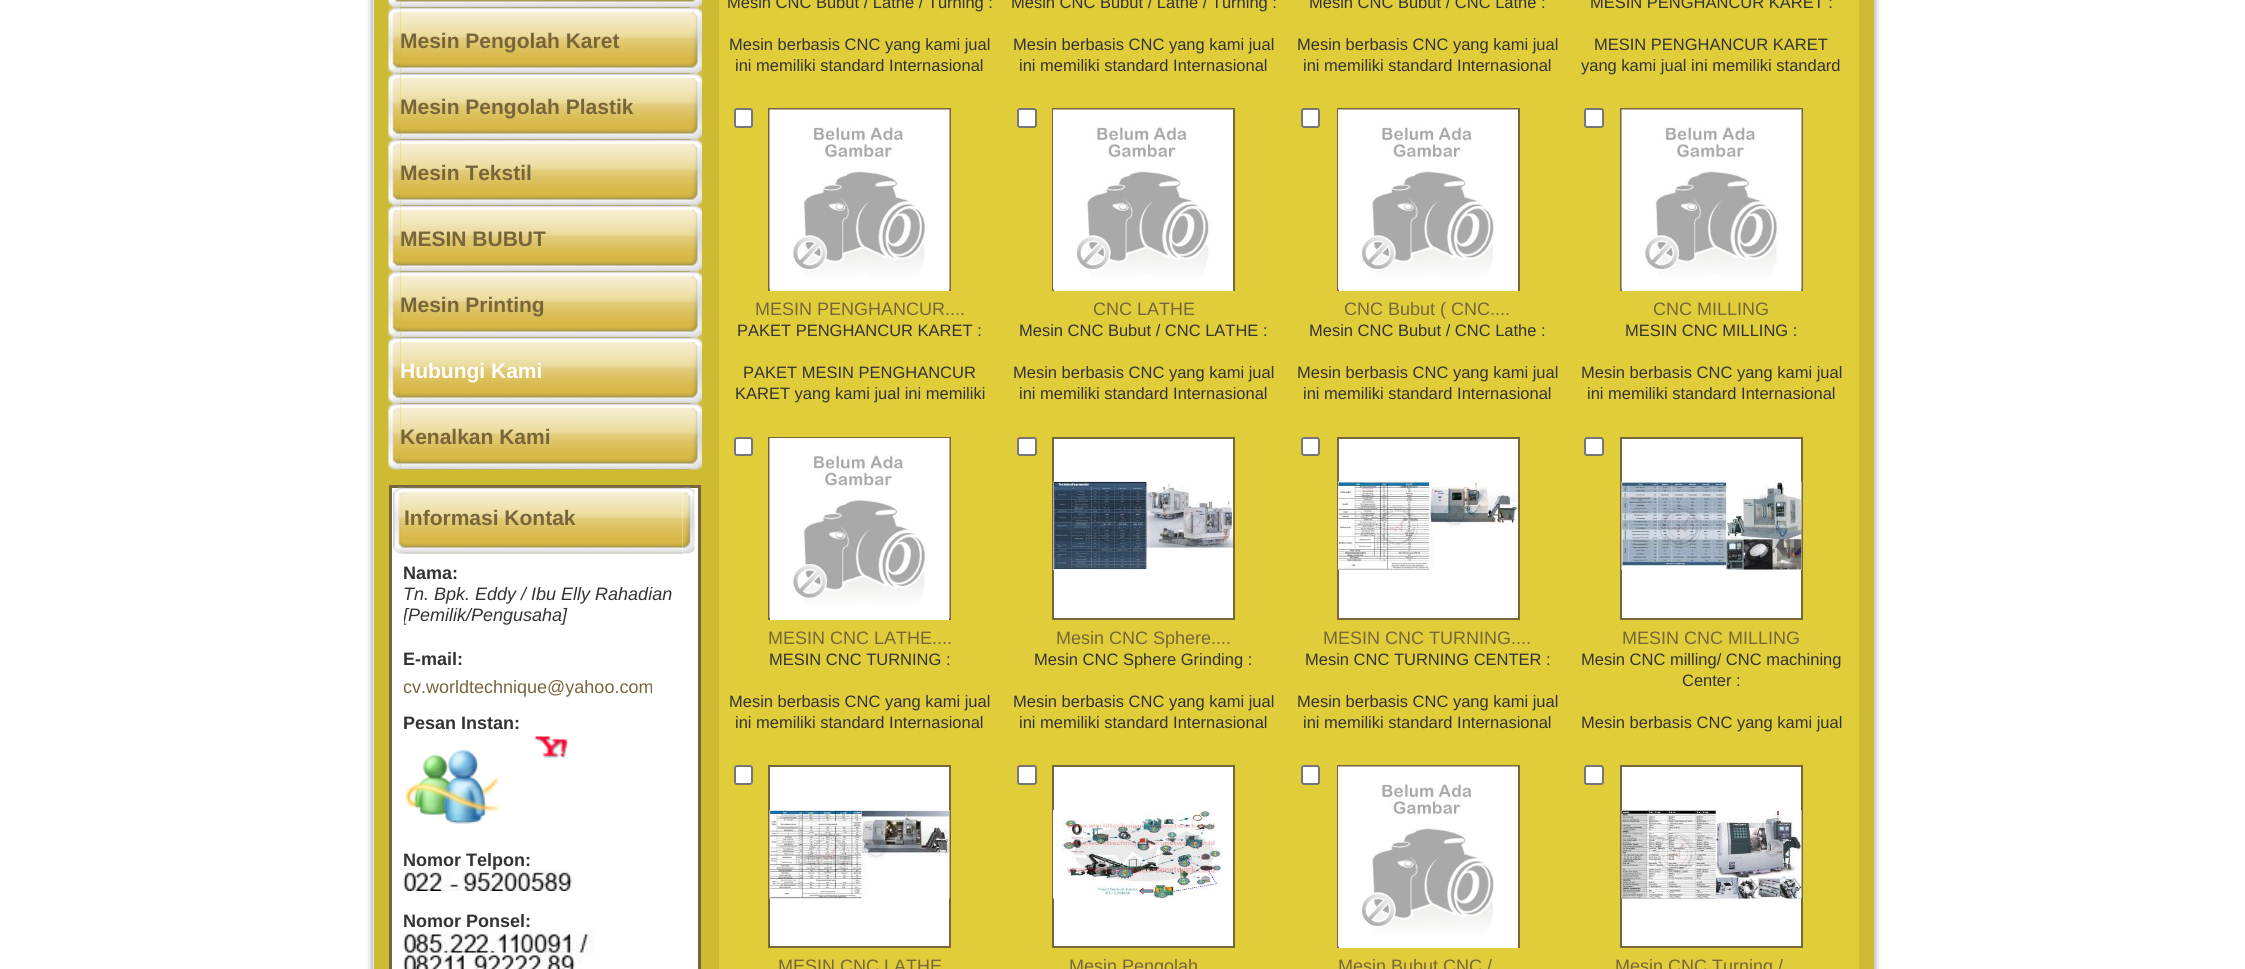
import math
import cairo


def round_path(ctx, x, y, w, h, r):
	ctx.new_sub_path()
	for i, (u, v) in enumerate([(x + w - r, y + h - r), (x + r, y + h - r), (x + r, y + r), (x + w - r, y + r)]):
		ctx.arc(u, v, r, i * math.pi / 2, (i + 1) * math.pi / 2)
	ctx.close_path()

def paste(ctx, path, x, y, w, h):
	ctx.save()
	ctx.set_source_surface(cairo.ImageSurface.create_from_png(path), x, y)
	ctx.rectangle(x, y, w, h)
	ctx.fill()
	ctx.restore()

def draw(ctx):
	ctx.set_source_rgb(1, 1, 1)
	ctx.paint()
	paste(ctx, 'media/1.png', 367, 0, 1513, 969)
	ctx.set_source_rgb(0.8, 0.733, 0.2)
	ctx.rectangle(374, 0, 1500, 969)
	ctx.fill()
	paste(ctx, 'media/2.png', 388, 0, 13, 8)
	paste(ctx, 'media/3.png', 400, 0, 290, 8)
	paste(ctx, 'media/4.png', 690, 0, 12, 8)
	paste(ctx, 'media/5.png', 388, 7, 13, 67)
	paste(ctx, 'media/6.png', 400, 7, 290, 67)
	ctx.select_font_face('Liberation Sans', cairo.FONT_SLANT_NORMAL, cairo.FONT_WEIGHT_BOLD)
	ctx.set_font_size(21)
	ctx.set_source_rgb(0.467, 0.4, 0.235)
	ctx.move_to(400, 48)
	ctx.show_text('Mesin Pengolah Karet')
	paste(ctx, 'media/7.png', 690, 7, 12, 67)
	paste(ctx, 'media/5.png', 388, 73, 13, 67)
	paste(ctx, 'media/8.png', 400, 73, 290, 67)
	ctx.move_to(400, 114)
	ctx.show_text('Mesin Pengolah Plastik')
	paste(ctx, 'media/7.png', 690, 73, 12, 67)
	paste(ctx, 'media/5.png', 388, 139, 13, 67)
	paste(ctx, 'media/9.png', 400, 139, 290, 67)
	ctx.move_to(400, 180)
	ctx.show_text('Mesin Tekstil')
	paste(ctx, 'media/7.png', 690, 139, 12, 67)
	paste(ctx, 'media/5.png', 388, 205, 13, 67)
	paste(ctx, 'media/6.png', 400, 205, 290, 67)
	ctx.move_to(400, 246)
	ctx.show_text('MESIN BUBUT')
	paste(ctx, 'media/7.png', 690, 205, 12, 67)
	paste(ctx, 'media/13.png', 388, 337, 13, 67)
	paste(ctx, 'media/16.png', 388, 403, 13, 67)
	paste(ctx, 'media/14.png', 400, 337, 290, 67)
	paste(ctx, 'media/10.png', 388, 271, 13, 67)
	paste(ctx, 'media/11.png', 400, 271, 290, 67)
	ctx.move_to(400, 312)
	ctx.show_text('Mesin Printing')
	paste(ctx, 'media/15.png', 690, 337, 12, 67)
	paste(ctx, 'media/12.png', 690, 271, 12, 67)
	ctx.set_source_rgb(1, 1, 1)
	ctx.move_to(400, 378)
	ctx.show_text('Hubungi Kami')
	paste(ctx, 'media/17.png', 400, 403, 290, 67)
	ctx.set_source_rgb(0.467, 0.4, 0.235)
	ctx.move_to(400, 444)
	ctx.show_text('Kenalkan Kami')
	paste(ctx, 'media/7.png', 690, 403, 12, 67)
	ctx.set_source_rgb(1, 1, 1)
	ctx.rectangle(390.5, 486.5, 309, 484)
	ctx.fill_preserve()
	ctx.set_source_rgb(0.467, 0.4, 0.235)
	ctx.set_line_width(3)
	ctx.stroke()
	paste(ctx, 'media/18.png', 393, 487, 12, 67)
	paste(ctx, 'media/19.png', 405, 487, 278, 67)
	ctx.move_to(404, 525)
	ctx.show_text('Informasi Kontak')
	paste(ctx, 'media/20.png', 682, 487, 13, 67)
	ctx.set_font_size(18)
	ctx.set_source_rgb(0.2, 0.2, 0.2)
	ctx.move_to(403, 579)
	ctx.show_text('Nama:')
	ctx.select_font_face('Liberation Sans', cairo.FONT_SLANT_ITALIC)
	ctx.move_to(403, 600)
	ctx.show_text('Tn. Bpk. Eddy / Ibu Elly Rahadian')
	ctx.save()
	ctx.rectangle(404, 563, 282, 63)
	ctx.clip()
	ctx.move_to(403, 621)
	ctx.show_text('[Pemilik/Pengusaha]')
	ctx.restore()
	ctx.select_font_face('Liberation Sans', cairo.FONT_SLANT_NORMAL, cairo.FONT_WEIGHT_BOLD)
	ctx.move_to(403, 665)
	ctx.show_text('E-mail:')
	ctx.save()
	ctx.rectangle(404, 641, 282, 57)
	ctx.clip()
	ctx.select_font_face('Liberation Sans')
	ctx.set_source_rgb(0.467, 0.4, 0.235)
	ctx.move_to(403, 693)
	ctx.show_text('cv.worldtechnique@yahoo.com')
	ctx.restore()
	ctx.move_to(403, 729)
	ctx.show_text('Pesan Instan:')
	paste(ctx, 'media/21.png', 404, 749, 96, 75)
	paste(ctx, 'media/22.png', 535, 736, 33, 22)
	ctx.move_to(403, 866)
	ctx.show_text('Nomor Telpon:')
	paste(ctx, 'media/23.png', 403, 870, 169, 21)
	ctx.move_to(403, 927)
	ctx.show_text('Nomor Ponsel:')
	paste(ctx, 'media/24.png', 403, 931, 192, 38)
	ctx.set_source_rgb(0.878, 0.804, 0.224)
	ctx.rectangle(719, 0, 1140, 969)
	ctx.fill()
	ctx.select_font_face('Liberation Sans')
	ctx.set_font_size(16.5)
	ctx.set_source_rgb(0.2, 0.2, 0.2)
	for x, y, s in [
		(727, 8, 'Mesin CNC Bubut / Lathe / Turning :'),
		(729, 50, 'Mesin berbasis CNC yang kami jual'),
		(735, 71, 'ini memiliki standard Internasional'),
		(1011, 8, 'Mesin CNC Bubut / Lathe / Turning :'),
		(1013, 50, 'Mesin berbasis CNC yang kami jual'),
		(1019, 71, 'ini memiliki standard Internasional'),
		(1309, 8, 'Mesin CNC Bubut / CNC Lathe :'),
		(1297, 50, 'Mesin berbasis CNC yang kami jual'),
		(1303, 71, 'ini memiliki standard Internasional'),
		(1590, 8, 'MESIN PENGHANCUR KARET :'),
		(1594, 50, 'MESIN PENGHANCUR KARET'),
		(1581, 71, 'yang kami jual ini memiliki standard'),
	]:
		ctx.move_to(x, y)
		ctx.show_text(s)
	ctx.set_source_rgb(1, 1, 1)
	round_path(ctx, 735, 109, 17, 18, 2)
	ctx.fill_preserve()
	ctx.set_source_rgb(0.463, 0.463, 0.463)
	ctx.set_line_width(2)
	ctx.stroke()
	ctx.set_source_rgb(1, 1, 1)
	ctx.rectangle(770, 289, 179, 2)
	ctx.fill()
	ctx.save()
	ctx.rectangle(768, 108, 183, 183)
	ctx.clip()
	ctx.rectangle(769, 109, 181, 186)
	ctx.set_source_rgb(0.467, 0.4, 0.235)
	ctx.stroke()
	ctx.restore()
	paste(ctx, 'media/25.png', 769, 109, 181, 181)
	ctx.set_font_size(18)
	ctx.set_source_rgb(0.467, 0.4, 0.235)
	ctx.move_to(755, 315)
	ctx.show_text('MESIN PENGHANCUR....')
	ctx.set_font_size(16.5)
	ctx.set_source_rgb(0.2, 0.2, 0.2)
	for x, y, s in [
		(737, 336, 'PAKET PENGHANCUR KARET :'),
		(743, 378, 'PAKET MESIN PENGHANCUR'),
		(735, 399, 'KARET yang kami jual ini memiliki'),
	]:
		ctx.move_to(x, y)
		ctx.show_text(s)
	ctx.set_source_rgb(1, 1, 1)
	round_path(ctx, 1018, 109, 18, 18, 2)
	ctx.fill_preserve()
	ctx.set_source_rgb(0.463, 0.463, 0.463)
	ctx.stroke()
	ctx.set_source_rgb(1, 1, 1)
	ctx.rectangle(1054, 289, 179, 2)
	ctx.fill()
	ctx.save()
	ctx.rectangle(1052, 108, 183, 183)
	ctx.clip()
	ctx.rectangle(1053, 109, 181, 186)
	ctx.set_source_rgb(0.467, 0.4, 0.235)
	ctx.stroke()
	ctx.restore()
	paste(ctx, 'media/26.png', 1053, 109, 180, 181)
	ctx.set_font_size(18)
	ctx.set_source_rgb(0.467, 0.4, 0.235)
	ctx.move_to(1093, 315)
	ctx.show_text('CNC LATHE')
	ctx.set_font_size(16.5)
	ctx.set_source_rgb(0.2, 0.2, 0.2)
	for x, y, s in [
		(1019, 336, 'Mesin CNC Bubut / CNC LATHE :'),
		(1013, 378, 'Mesin berbasis CNC yang kami jual'),
		(1019, 399, 'ini memiliki standard Internasional'),
	]:
		ctx.move_to(x, y)
		ctx.show_text(s)
	ctx.set_source_rgb(1, 1, 1)
	round_path(ctx, 1302, 109, 17, 18, 2)
	ctx.fill_preserve()
	ctx.set_source_rgb(0.463, 0.463, 0.463)
	ctx.stroke()
	ctx.set_source_rgb(1, 1, 1)
	ctx.rectangle(1339, 289, 179, 2)
	ctx.fill()
	ctx.save()
	ctx.rectangle(1337, 108, 183, 183)
	ctx.clip()
	ctx.rectangle(1338, 109, 181, 186)
	ctx.set_source_rgb(0.467, 0.4, 0.235)
	ctx.stroke()
	ctx.restore()
	paste(ctx, 'media/26.png', 1338, 109, 180, 181)
	ctx.set_font_size(18)
	ctx.set_source_rgb(0.467, 0.4, 0.235)
	ctx.move_to(1344, 315)
	ctx.show_text('CNC Bubut ( CNC....')
	ctx.set_font_size(16.5)
	ctx.set_source_rgb(0.2, 0.2, 0.2)
	for x, y, s in [
		(1309, 336, 'Mesin CNC Bubut / CNC Lathe :'),
		(1297, 378, 'Mesin berbasis CNC yang kami jual'),
		(1303, 399, 'ini memiliki standard Internasional'),
	]:
		ctx.move_to(x, y)
		ctx.show_text(s)
	ctx.set_source_rgb(1, 1, 1)
	round_path(ctx, 1585, 109, 18, 18, 2)
	ctx.fill_preserve()
	ctx.set_source_rgb(0.463, 0.463, 0.463)
	ctx.stroke()
	ctx.set_source_rgb(1, 1, 1)
	ctx.rectangle(1622, 289, 179, 2)
	ctx.fill()
	ctx.save()
	ctx.rectangle(1620, 108, 183, 183)
	ctx.clip()
	ctx.rectangle(1621, 109, 181, 186)
	ctx.set_source_rgb(0.467, 0.4, 0.235)
	ctx.stroke()
	ctx.restore()
	paste(ctx, 'media/25.png', 1621, 109, 181, 181)
	ctx.set_font_size(18)
	ctx.set_source_rgb(0.467, 0.4, 0.235)
	ctx.move_to(1653, 315)
	ctx.show_text('CNC MILLING')
	ctx.set_font_size(16.5)
	ctx.set_source_rgb(0.2, 0.2, 0.2)
	for x, y, s in [
		(1625, 336, 'MESIN CNC MILLING :'),
		(1581, 378, 'Mesin berbasis CNC yang kami jual'),
		(1587, 399, 'ini memiliki standard Internasional'),
	]:
		ctx.move_to(x, y)
		ctx.show_text(s)
	ctx.set_source_rgb(1, 1, 1)
	round_path(ctx, 735, 438, 17, 17, 2)
	ctx.fill_preserve()
	ctx.set_source_rgb(0.463, 0.463, 0.463)
	ctx.stroke()
	ctx.set_source_rgb(1, 1, 1)
	ctx.rectangle(770, 618, 179, 2)
	ctx.fill()
	ctx.save()
	ctx.rectangle(768, 437, 183, 183)
	ctx.clip()
	ctx.rectangle(769, 438, 181, 185)
	ctx.set_source_rgb(0.467, 0.4, 0.235)
	ctx.stroke()
	ctx.restore()
	paste(ctx, 'media/27.png', 769, 438, 181, 180)
	ctx.set_font_size(18)
	ctx.set_source_rgb(0.467, 0.4, 0.235)
	ctx.move_to(768, 644)
	ctx.show_text('MESIN CNC LATHE....')
	ctx.set_font_size(16.5)
	ctx.set_source_rgb(0.2, 0.2, 0.2)
	for x, y, s in [
		(769, 665, 'MESIN CNC TURNING :'),
		(729, 707, 'Mesin berbasis CNC yang kami jual'),
		(735, 728, 'ini memiliki standard Internasional'),
	]:
		ctx.move_to(x, y)
		ctx.show_text(s)
	ctx.set_source_rgb(1, 1, 1)
	round_path(ctx, 1018, 438, 18, 17, 2)
	ctx.fill_preserve()
	ctx.set_source_rgb(0.463, 0.463, 0.463)
	ctx.stroke()
	ctx.set_source_rgb(1, 1, 1)
	ctx.rectangle(1053, 438, 181, 181)
	ctx.fill_preserve()
	ctx.set_source_rgb(0.467, 0.4, 0.235)
	ctx.stroke()
	paste(ctx, 'media/28.png', 1053, 481, 180, 89)
	ctx.set_font_size(18)
	ctx.move_to(1056, 644)
	ctx.show_text('Mesin CNC Sphere....')
	ctx.set_font_size(16.5)
	ctx.set_source_rgb(0.2, 0.2, 0.2)
	for x, y, s in [
		(1034, 665, 'Mesin CNC Sphere Grinding :'),
		(1013, 707, 'Mesin berbasis CNC yang kami jual'),
		(1019, 728, 'ini memiliki standard Internasional'),
	]:
		ctx.move_to(x, y)
		ctx.show_text(s)
	ctx.set_source_rgb(1, 1, 1)
	round_path(ctx, 1302, 438, 17, 17, 2)
	ctx.fill_preserve()
	ctx.set_source_rgb(0.463, 0.463, 0.463)
	ctx.stroke()
	ctx.set_source_rgb(1, 1, 1)
	ctx.rectangle(1338, 438, 181, 181)
	ctx.fill_preserve()
	ctx.set_source_rgb(0.467, 0.4, 0.235)
	ctx.stroke()
	paste(ctx, 'media/29.png', 1338, 481, 180, 89)
	ctx.set_font_size(18)
	ctx.move_to(1323, 644)
	ctx.show_text('MESIN CNC TURNING....')
	ctx.set_font_size(16.5)
	ctx.set_source_rgb(0.2, 0.2, 0.2)
	for x, y, s in [
		(1305, 665, 'Mesin CNC TURNING CENTER :'),
		(1297, 707, 'Mesin berbasis CNC yang kami jual'),
		(1303, 728, 'ini memiliki standard Internasional'),
	]:
		ctx.move_to(x, y)
		ctx.show_text(s)
	ctx.set_source_rgb(1, 1, 1)
	round_path(ctx, 1585, 438, 18, 17, 2)
	ctx.fill_preserve()
	ctx.set_source_rgb(0.463, 0.463, 0.463)
	ctx.stroke()
	ctx.set_source_rgb(1, 1, 1)
	ctx.rectangle(1621, 438, 181, 181)
	ctx.fill_preserve()
	ctx.set_source_rgb(0.467, 0.4, 0.235)
	ctx.stroke()
	paste(ctx, 'media/30.png', 1621, 481, 181, 89)
	ctx.set_font_size(18)
	ctx.move_to(1622, 644)
	ctx.show_text('MESIN CNC MILLING')
	ctx.set_font_size(16.5)
	ctx.set_source_rgb(0.2, 0.2, 0.2)
	for x, y, s in [
		(1581, 665, 'Mesin CNC milling/ CNC machining'),
		(1682, 686, 'Center :'),
		(1581, 728, 'Mesin berbasis CNC yang kami jual'),
	]:
		ctx.move_to(x, y)
		ctx.show_text(s)
	ctx.set_source_rgb(1, 1, 1)
	round_path(ctx, 735, 766, 17, 18, 2)
	ctx.fill_preserve()
	ctx.set_source_rgb(0.463, 0.463, 0.463)
	ctx.stroke()
	ctx.set_source_rgb(1, 1, 1)
	ctx.rectangle(769, 766, 181, 181)
	ctx.fill_preserve()
	ctx.set_source_rgb(0.467, 0.4, 0.235)
	ctx.stroke()
	paste(ctx, 'media/31.png', 769, 810, 181, 89)
	ctx.set_font_size(18)
	ctx.move_to(778, 972)
	ctx.show_text('MESIN CNC LATHE')
	ctx.set_source_rgb(1, 1, 1)
	round_path(ctx, 1018, 766, 18, 18, 2)
	ctx.fill_preserve()
	ctx.set_source_rgb(0.463, 0.463, 0.463)
	ctx.stroke()
	ctx.set_source_rgb(1, 1, 1)
	ctx.rectangle(1053, 766, 181, 181)
	ctx.fill_preserve()
	ctx.set_source_rgb(0.467, 0.4, 0.235)
	ctx.stroke()
	paste(ctx, 'media/32.png', 1053, 810, 172, 89)
	ctx.move_to(1069, 972)
	ctx.show_text('Mesin Pengolah')
	ctx.set_source_rgb(1, 1, 1)
	round_path(ctx, 1302, 766, 17, 18, 2)
	ctx.fill_preserve()
	ctx.set_source_rgb(0.463, 0.463, 0.463)
	ctx.stroke()
	ctx.set_source_rgb(1, 1, 1)
	ctx.rectangle(1339, 946, 179, 2)
	ctx.fill()
	ctx.save()
	ctx.rectangle(1337, 765, 183, 183)
	ctx.clip()
	ctx.rectangle(1338, 766, 181, 186)
	ctx.set_source_rgb(0.467, 0.4, 0.235)
	ctx.stroke()
	ctx.restore()
	paste(ctx, 'media/33.png', 1338, 766, 180, 181)
	ctx.set_source_rgb(0.467, 0.4, 0.235)
	ctx.move_to(1338, 972)
	ctx.show_text('Mesin Bubut CNC /')
	ctx.set_source_rgb(1, 1, 1)
	round_path(ctx, 1585, 766, 18, 18, 2)
	ctx.fill_preserve()
	ctx.set_source_rgb(0.463, 0.463, 0.463)
	ctx.stroke()
	ctx.set_source_rgb(1, 1, 1)
	ctx.rectangle(1621, 766, 181, 181)
	ctx.fill_preserve()
	ctx.set_source_rgb(0.467, 0.4, 0.235)
	ctx.stroke()
	paste(ctx, 'media/34.png', 1621, 810, 181, 89)
	ctx.move_to(1615, 972)
	ctx.show_text('Mesin CNC Turning /')


surface = cairo.ImageSurface(cairo.FORMAT_RGB24, 2245, 969)
ctx = cairo.Context(surface)
options = cairo.FontOptions()
options.set_hint_metrics(cairo.HINT_METRICS_OFF)
options.set_hint_style(cairo.HINT_STYLE_NONE)
ctx.set_font_options(options)
ctx.set_miter_limit(4)
draw(ctx)
surface.write_to_png('image.png')
